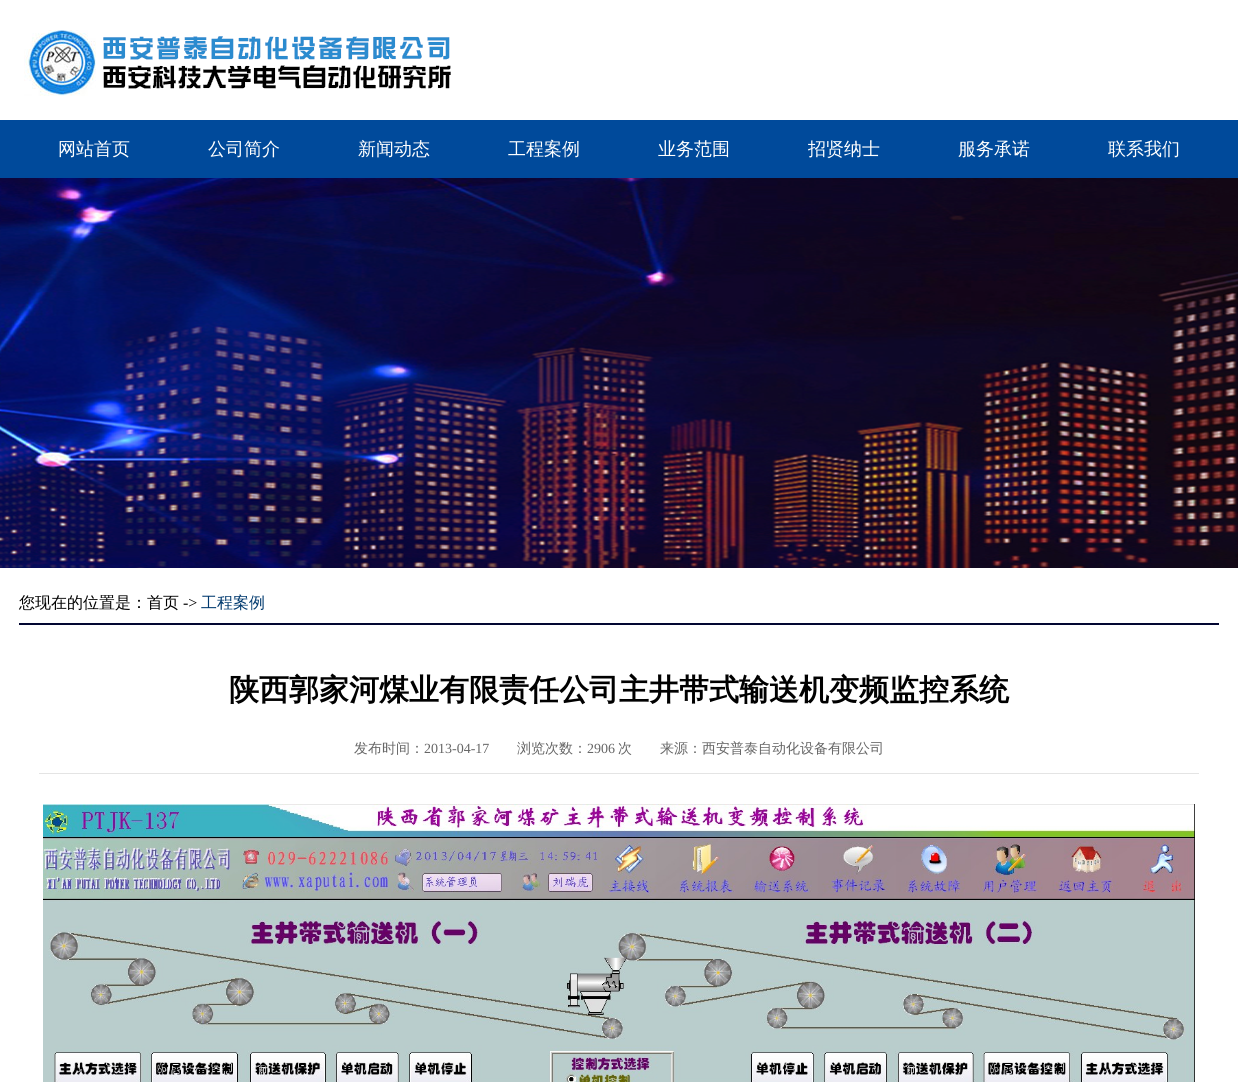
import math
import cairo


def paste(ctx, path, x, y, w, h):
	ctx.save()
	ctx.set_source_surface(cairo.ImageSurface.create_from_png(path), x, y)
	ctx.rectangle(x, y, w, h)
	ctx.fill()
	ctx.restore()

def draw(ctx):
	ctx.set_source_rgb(1, 1, 1)
	ctx.paint()
	paste(ctx, 'media/1.png', 24, 30, 427, 66)
	ctx.set_source_rgb(0, 0.29, 0.608)
	ctx.rectangle(0, 120, 1238, 58)
	ctx.fill()
	ctx.select_font_face('WenQuanYi Zen Hei Medium')
	ctx.set_font_size(18)
	ctx.set_source_rgb(1, 1, 1)
	for x, y, s in [
		(58, 155, '网站首页'),
		(208, 155, '公司简介'),
		(358, 155, '新闻动态'),
		(508, 155, '工程案例'),
		(658, 155, '业务范围'),
		(808, 155, '招贤纳士'),
		(958, 155, '服务承诺'),
		(1108, 155, '联系我们'),
	]:
		ctx.move_to(x, y)
		ctx.show_text(s)
	paste(ctx, 'media/2.png', 0, 178, 1238, 390)
	ctx.set_source_rgb(0.008, 0.027, 0.192)
	ctx.rectangle(19, 623, 1200, 2)
	ctx.fill()
	ctx.set_font_size(16)
	ctx.set_source_rgb(0, 0, 0)
	ctx.move_to(19, 608)
	ctx.show_text('您现在的位置是：首页')
	ctx.select_font_face('Liberation Serif')
	ctx.move_to(183, 608)
	ctx.show_text('->')
	ctx.select_font_face('WenQuanYi Zen Hei Medium')
	ctx.set_source_rgb(0, 0.224, 0.431)
	ctx.move_to(201, 608)
	ctx.show_text('工程案例')
	ctx.select_font_face('WenQuanYi Zen Hei', cairo.FONT_SLANT_NORMAL, cairo.FONT_WEIGHT_BOLD)
	ctx.set_font_size(30)
	ctx.set_source_rgb(0, 0, 0)
	ctx.move_to(229, 700)
	ctx.show_text('陕西郭家河煤业有限责任公司主井带式输送机变频监控系统')
	ctx.set_source_rgb(0.894, 0.894, 0.894)
	ctx.rectangle(39, 773, 1160, 1)
	ctx.fill()
	ctx.select_font_face('WenQuanYi Zen Hei Medium')
	ctx.set_font_size(14)
	ctx.set_source_rgb(0.4, 0.4, 0.4)
	ctx.move_to(354, 753)
	ctx.show_text('发布时间：')
	ctx.select_font_face('Liberation Serif')
	ctx.move_to(424, 753)
	ctx.show_text('2013-04-17')
	ctx.select_font_face('WenQuanYi Zen Hei Medium')
	ctx.move_to(517, 753)
	ctx.show_text('浏览次数：')
	ctx.select_font_face('Liberation Serif')
	ctx.move_to(587, 753)
	ctx.show_text('2906')
	ctx.select_font_face('WenQuanYi Zen Hei Medium')
	ctx.move_to(618, 753)
	ctx.show_text('次　　来源：西安普泰自动化设备有限公司')
	paste(ctx, 'media/3.png', 43, 804, 1152, 278)


surface = cairo.ImageSurface(cairo.FORMAT_RGB24, 1238, 1082)
ctx = cairo.Context(surface)
options = cairo.FontOptions()
options.set_hint_metrics(cairo.HINT_METRICS_OFF)
options.set_hint_style(cairo.HINT_STYLE_NONE)
ctx.set_font_options(options)
ctx.set_miter_limit(4)
draw(ctx)
surface.write_to_png('image.png')
